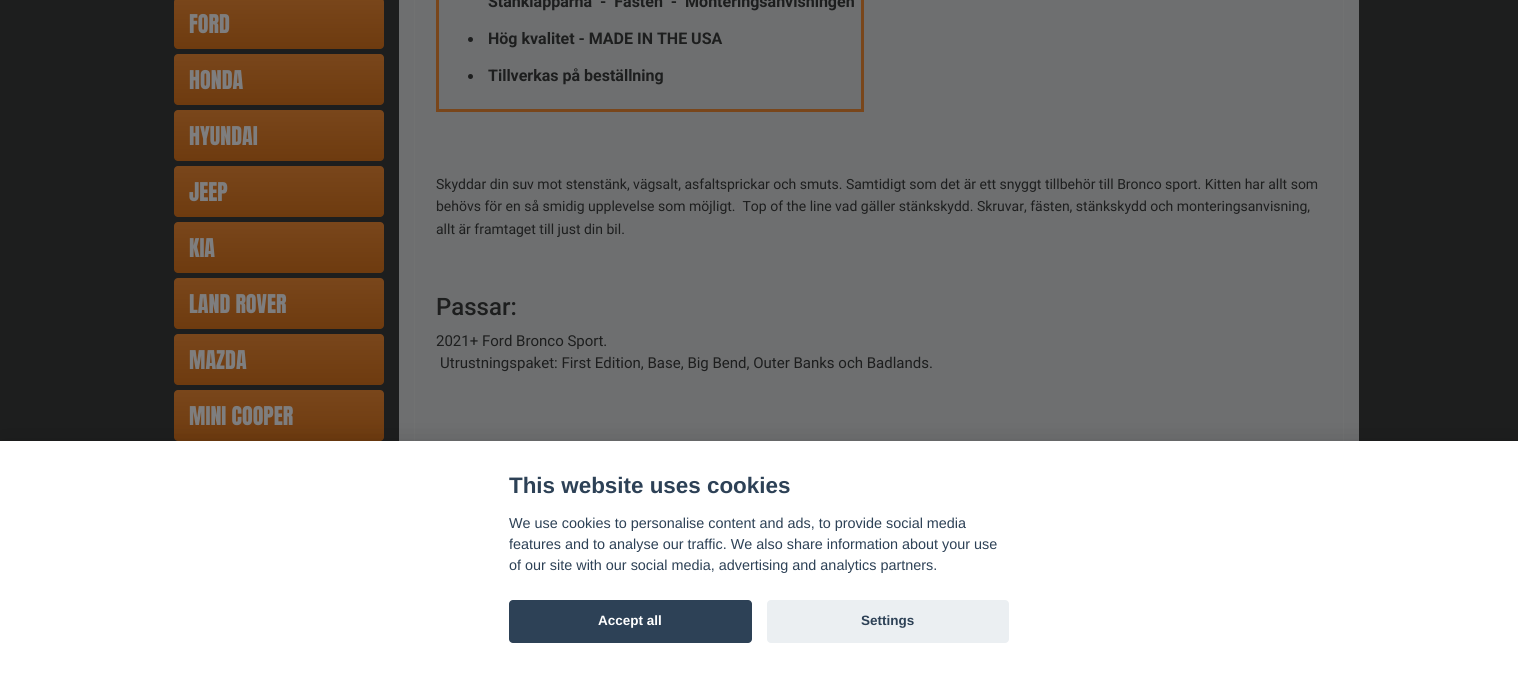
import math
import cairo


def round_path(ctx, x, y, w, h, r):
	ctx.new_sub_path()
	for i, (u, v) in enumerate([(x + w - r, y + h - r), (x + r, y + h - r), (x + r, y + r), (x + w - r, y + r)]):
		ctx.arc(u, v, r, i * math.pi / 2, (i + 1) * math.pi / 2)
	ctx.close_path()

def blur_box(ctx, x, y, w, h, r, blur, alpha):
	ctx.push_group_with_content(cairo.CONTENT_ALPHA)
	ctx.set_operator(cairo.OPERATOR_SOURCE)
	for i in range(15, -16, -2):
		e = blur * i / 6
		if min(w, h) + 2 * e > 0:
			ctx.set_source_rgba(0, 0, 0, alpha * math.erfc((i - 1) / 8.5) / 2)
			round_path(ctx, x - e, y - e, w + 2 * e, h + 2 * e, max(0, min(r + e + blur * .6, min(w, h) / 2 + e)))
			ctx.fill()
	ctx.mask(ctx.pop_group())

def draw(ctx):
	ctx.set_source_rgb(0.114, 0.118, 0.118)
	ctx.paint()
	gradient = cairo.LinearGradient(279, -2, 279, 49)
	gradient.add_color_stop_rgba(0, 0.475, 0.275, 0.106, 1)
	gradient.add_color_stop_rgba(1, 0.431, 0.231, 0.059, 1)
	ctx.set_source(gradient)
	round_path(ctx, 174, -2, 210, 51, 4)
	ctx.fill()
	ctx.select_font_face('Anton')
	ctx.set_font_size(22)
	ctx.set_source_rgb(0.494, 0.494, 0.498)
	ctx.move_to(189, 33)
	ctx.show_text('FORD')
	gradient = cairo.LinearGradient(279, 54, 279, 105)
	gradient.add_color_stop_rgba(0, 0.475, 0.275, 0.106, 1)
	gradient.add_color_stop_rgba(1, 0.431, 0.231, 0.059, 1)
	ctx.set_source(gradient)
	round_path(ctx, 174, 54, 210, 51, 4)
	ctx.fill()
	ctx.set_source_rgb(0.494, 0.494, 0.498)
	ctx.move_to(189, 89)
	ctx.show_text('HONDA')
	gradient = cairo.LinearGradient(279, 110, 279, 161)
	gradient.add_color_stop_rgba(0, 0.475, 0.275, 0.106, 1)
	gradient.add_color_stop_rgba(1, 0.431, 0.231, 0.059, 1)
	ctx.set_source(gradient)
	round_path(ctx, 174, 110, 210, 51, 4)
	ctx.fill()
	ctx.set_source_rgb(0.494, 0.494, 0.498)
	ctx.move_to(189, 145)
	ctx.show_text('HYUNDAI')
	gradient = cairo.LinearGradient(279, 166, 279, 217)
	gradient.add_color_stop_rgba(0, 0.475, 0.275, 0.106, 1)
	gradient.add_color_stop_rgba(1, 0.431, 0.231, 0.059, 1)
	ctx.set_source(gradient)
	round_path(ctx, 174, 166, 210, 51, 4)
	ctx.fill()
	ctx.set_source_rgb(0.494, 0.494, 0.498)
	ctx.move_to(189, 201)
	ctx.show_text('JEEP')
	gradient = cairo.LinearGradient(279, 222, 279, 273)
	gradient.add_color_stop_rgba(0, 0.475, 0.275, 0.106, 1)
	gradient.add_color_stop_rgba(1, 0.431, 0.231, 0.059, 1)
	ctx.set_source(gradient)
	round_path(ctx, 174, 222, 210, 51, 4)
	ctx.fill()
	ctx.set_source_rgb(0.494, 0.494, 0.498)
	ctx.move_to(189, 257)
	ctx.show_text('KIA')
	gradient = cairo.LinearGradient(279, 278, 279, 329)
	gradient.add_color_stop_rgba(0, 0.475, 0.275, 0.106, 1)
	gradient.add_color_stop_rgba(1, 0.431, 0.231, 0.059, 1)
	ctx.set_source(gradient)
	round_path(ctx, 174, 278, 210, 51, 4)
	ctx.fill()
	ctx.set_source_rgb(0.494, 0.494, 0.498)
	ctx.move_to(189, 313)
	ctx.show_text('LAND ROVER')
	gradient = cairo.LinearGradient(279, 334, 279, 385)
	gradient.add_color_stop_rgba(0, 0.475, 0.275, 0.106, 1)
	gradient.add_color_stop_rgba(1, 0.431, 0.231, 0.059, 1)
	ctx.set_source(gradient)
	round_path(ctx, 174, 334, 210, 51, 4)
	ctx.fill()
	ctx.set_source_rgb(0.494, 0.494, 0.498)
	ctx.move_to(189, 369)
	ctx.show_text('MAZDA')
	gradient = cairo.LinearGradient(279, 390, 279, 441)
	gradient.add_color_stop_rgba(0, 0.475, 0.275, 0.106, 1)
	gradient.add_color_stop_rgba(1, 0.431, 0.231, 0.059, 1)
	ctx.set_source(gradient)
	round_path(ctx, 174, 390, 210, 51, 4)
	ctx.fill()
	ctx.set_source_rgb(0.494, 0.494, 0.498)
	ctx.move_to(189, 425)
	ctx.show_text('MINI COOPER')
	ctx.set_source_rgb(0.431, 0.435, 0.439)
	ctx.rectangle(399, 0, 960, 441)
	ctx.fill()
	ctx.rectangle(414.5, -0.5, 929, 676)
	ctx.set_source_rgb(0.443, 0.447, 0.447)
	ctx.set_line_width(1)
	ctx.stroke()
	ctx.rectangle(437.5, -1.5, 425, 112)
	ctx.set_source_rgb(0.475, 0.275, 0.106)
	ctx.set_line_width(3)
	ctx.stroke()
	ctx.select_font_face('Roboto', cairo.FONT_SLANT_NORMAL, cairo.FONT_WEIGHT_BOLD)
	ctx.set_font_size(16)
	ctx.set_source_rgb(0.114, 0.118, 0.118)
	ctx.move_to(488, 7)
	ctx.show_text('Stänklapparna  -  Fästen  -  Monteringsanvisningen')
	ctx.new_path()
	ctx.arc(470.5, 39.5, 2.5, 0, 2 * math.pi)
	ctx.fill()
	ctx.move_to(488, 44)
	ctx.show_text('Hög kvalitet - MADE IN THE USA')
	ctx.new_path()
	ctx.arc(470.5, 76.5, 2.5, 0, 2 * math.pi)
	ctx.fill()
	ctx.move_to(488, 81)
	ctx.show_text('Tillverkas på beställning')
	ctx.select_font_face('Roboto')
	ctx.set_font_size(14)
	for x, y, s in [
		(436, 189, 'Skyddar din suv mot stenstänk, vägsalt, asfaltsprickar och smuts. Samtidigt som det är ett snyggt tillbehör till Bronco sport. Kitten har allt som'),
		(436, 211, 'behövs för en så smidig upplevelse som möjligt.  Top of the line vad gäller stänkskydd. Skruvar, fästen, stänkskydd och monteringsanvisning,'),
		(436, 234, 'allt är framtaget till just din bil.'),
	]:
		ctx.move_to(x, y)
		ctx.show_text(s)
	ctx.select_font_face('Roboto Medium')
	ctx.set_font_size(24)
	ctx.move_to(436, 315)
	ctx.show_text('Passar:')
	ctx.select_font_face('Roboto')
	ctx.set_font_size(15)
	ctx.move_to(436, 346)
	ctx.show_text('2021+ Ford Bronco Sport.')
	ctx.move_to(440, 368)
	ctx.show_text('Utrustningspaket: First Edition, Base, Big Bend, Outer Banks och Badlands.')
	ctx.set_source_rgb(0.008, 0.008, 0.012)
	blur_box(ctx, 0, 451, 1518, 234, 0, 15, 0.28)
	ctx.set_source_rgb(1, 1, 1)
	ctx.rectangle(0, 441, 1518, 234)
	ctx.fill()
	ctx.select_font_face('Liberation Sans', cairo.FONT_SLANT_NORMAL, cairo.FONT_WEIGHT_BOLD)
	ctx.set_font_size(22.4)
	ctx.set_source_rgb(0.176, 0.255, 0.337)
	ctx.move_to(509, 493)
	ctx.show_text('This website uses cookies')
	ctx.select_font_face('Liberation Sans')
	ctx.set_font_size(14.4)
	for x, y, s in [
		(509, 528, 'We use cookies to personalise content and ads, to provide social media'),
		(509, 549, 'features and to analyse our traffic. We also share information about your use'),
		(509, 570, 'of our site with our social media, advertising and analytics partners.'),
	]:
		ctx.move_to(x, y)
		ctx.show_text(s)
	round_path(ctx, 509, 600, 243, 43, 4)
	ctx.fill()
	ctx.select_font_face('Liberation Sans', cairo.FONT_SLANT_NORMAL, cairo.FONT_WEIGHT_BOLD)
	ctx.set_font_size(13.5)
	ctx.set_source_rgb(1, 1, 1)
	ctx.move_to(598, 625)
	ctx.show_text('Accept all')
	ctx.set_source_rgb(0.918, 0.937, 0.949)
	round_path(ctx, 767, 600, 242, 43, 4)
	ctx.fill()
	ctx.set_source_rgb(0.176, 0.255, 0.337)
	ctx.move_to(861, 625)
	ctx.show_text('Settings')


surface = cairo.ImageSurface(cairo.FORMAT_RGB24, 1518, 675)
ctx = cairo.Context(surface)
options = cairo.FontOptions()
options.set_hint_metrics(cairo.HINT_METRICS_OFF)
options.set_hint_style(cairo.HINT_STYLE_NONE)
ctx.set_font_options(options)
ctx.set_miter_limit(4)
draw(ctx)
surface.write_to_png('image.png')
